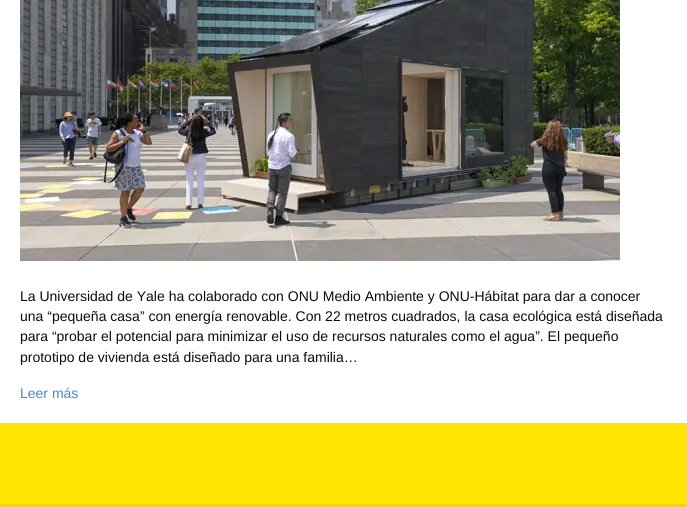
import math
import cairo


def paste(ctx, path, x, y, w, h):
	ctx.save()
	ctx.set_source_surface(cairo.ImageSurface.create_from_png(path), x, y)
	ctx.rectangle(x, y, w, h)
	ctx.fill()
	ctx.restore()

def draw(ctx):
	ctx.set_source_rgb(1, 1, 1)
	ctx.paint()
	paste(ctx, 'media/1.png', 20, 0, 600, 261)
	ctx.select_font_face('Liberation Sans')
	ctx.set_font_size(14)
	ctx.set_source_rgb(0.047, 0.047, 0.047)
	for x, y, s in [
		(20, 301, 'La Universidad de Yale ha colaborado con ONU Medio Ambiente y ONU-Hábitat para dar a conocer'),
		(20, 321, 'una “pequeña casa” con energía renovable. Con 22 metros cuadrados, la casa ecológica está diseñada'),
		(20, 341, 'para “probar el potencial para minimizar el uso de recursos naturales como el agua”. El pequeño'),
		(20, 362, 'prototipo de vivienda está diseñado para una familia…'),
	]:
		ctx.move_to(x, y)
		ctx.show_text(s)
	ctx.set_source_rgb(0.259, 0.545, 0.792)
	ctx.move_to(20, 398)
	ctx.show_text('Leer más')
	ctx.set_source_rgb(1, 0.898, 0)
	ctx.rectangle(0, 423, 687, 81)
	ctx.fill()
	ctx.set_source_rgb(0.937, 0.843, 0)
	ctx.rectangle(0, 504, 687, 3)
	ctx.fill()


surface = cairo.ImageSurface(cairo.FORMAT_RGB24, 687, 507)
ctx = cairo.Context(surface)
options = cairo.FontOptions()
options.set_hint_metrics(cairo.HINT_METRICS_OFF)
options.set_hint_style(cairo.HINT_STYLE_NONE)
ctx.set_font_options(options)
ctx.set_miter_limit(4)
draw(ctx)
surface.write_to_png('image.png')
